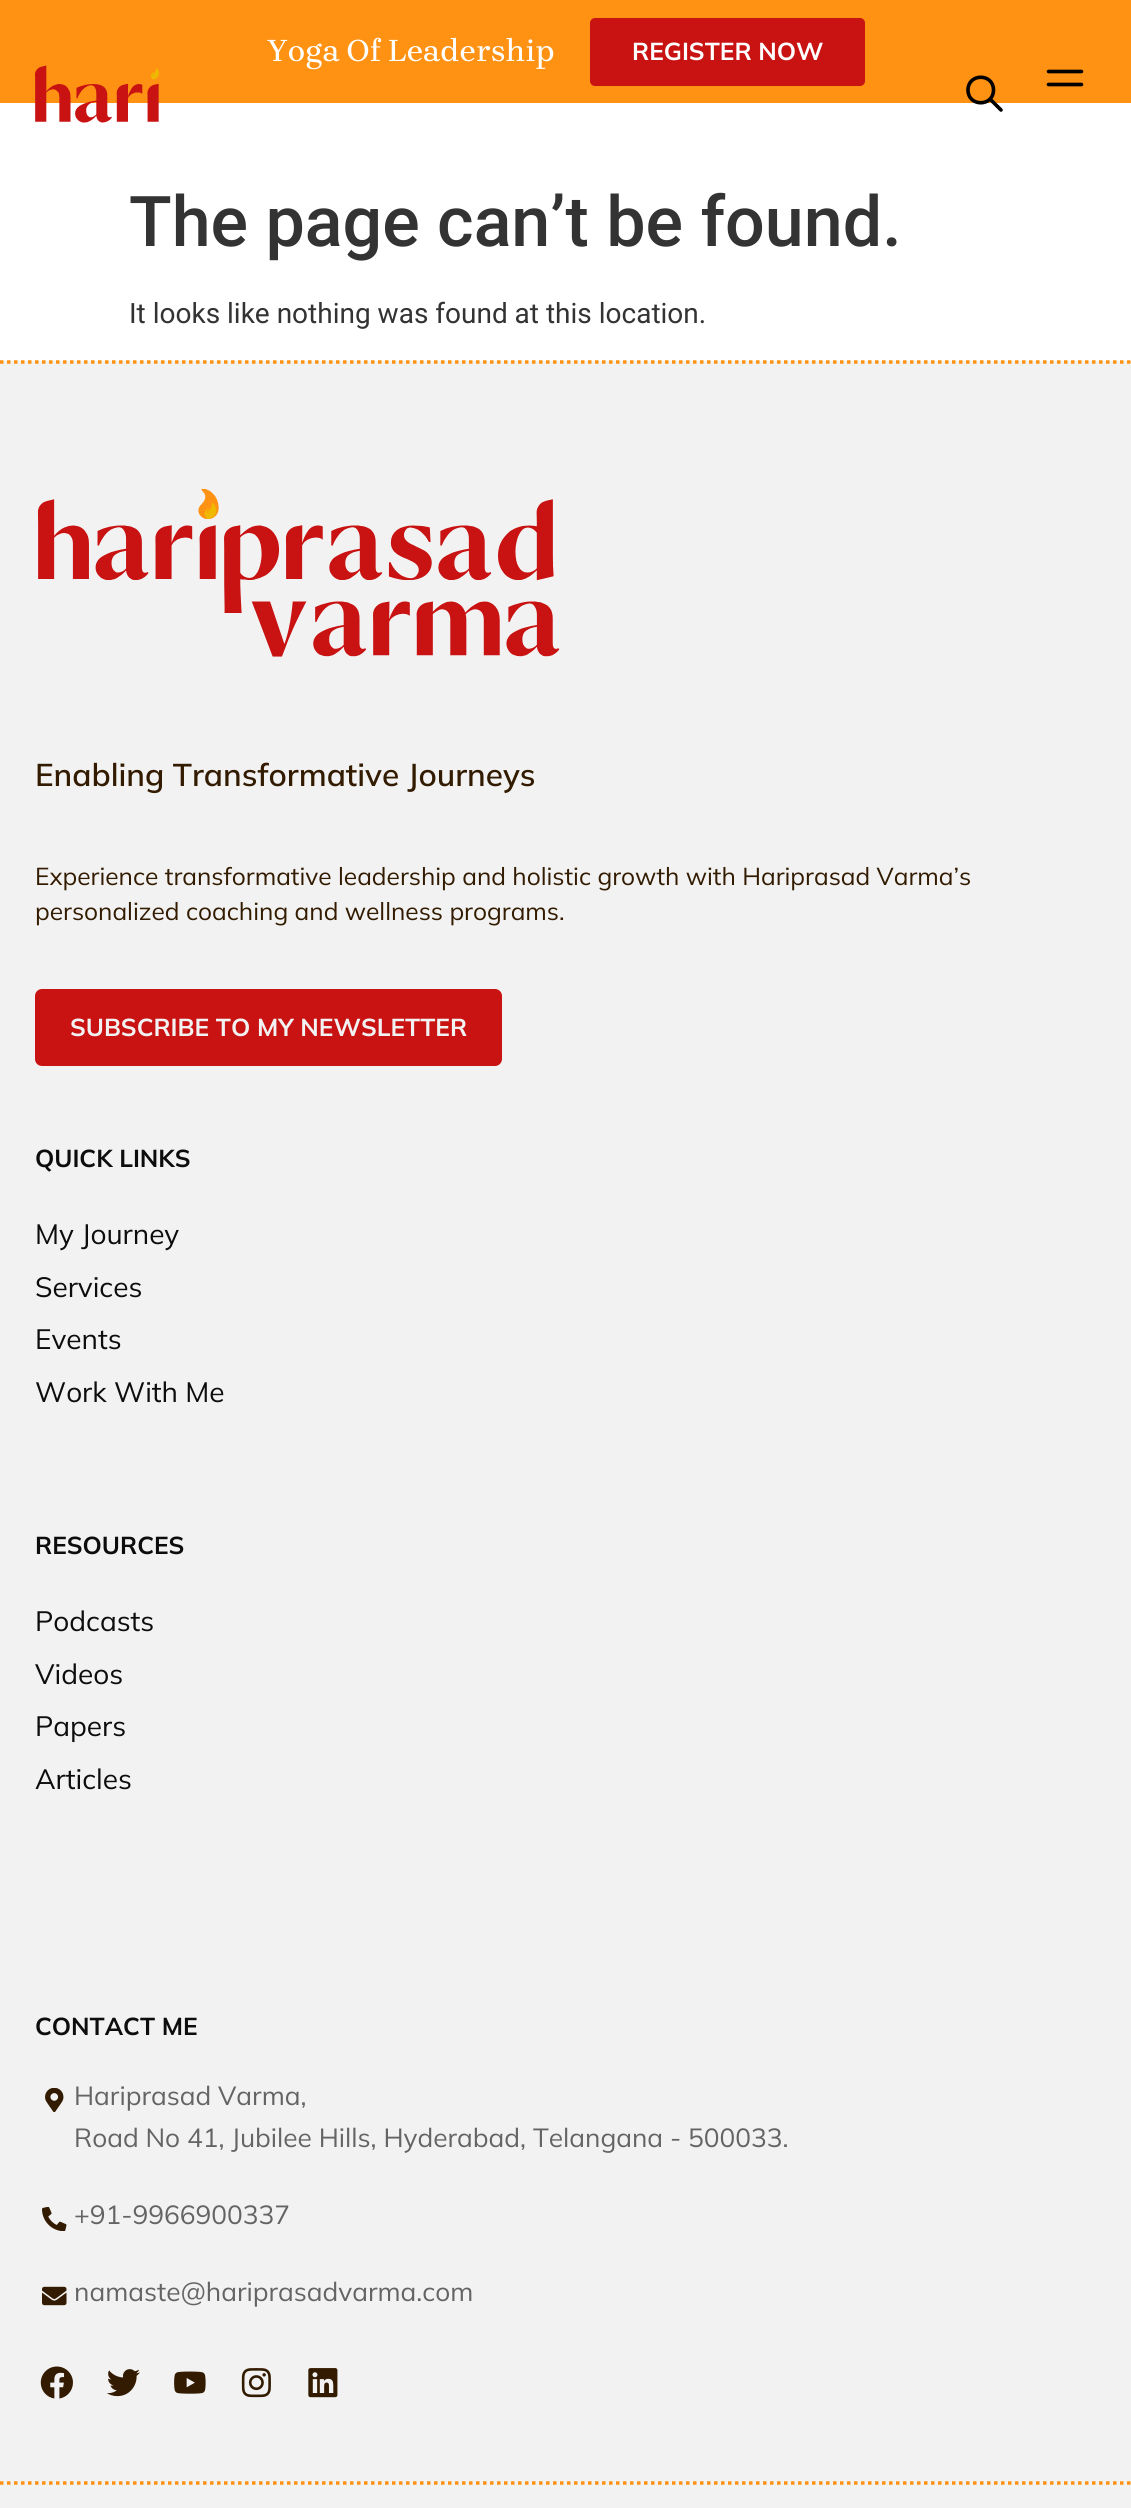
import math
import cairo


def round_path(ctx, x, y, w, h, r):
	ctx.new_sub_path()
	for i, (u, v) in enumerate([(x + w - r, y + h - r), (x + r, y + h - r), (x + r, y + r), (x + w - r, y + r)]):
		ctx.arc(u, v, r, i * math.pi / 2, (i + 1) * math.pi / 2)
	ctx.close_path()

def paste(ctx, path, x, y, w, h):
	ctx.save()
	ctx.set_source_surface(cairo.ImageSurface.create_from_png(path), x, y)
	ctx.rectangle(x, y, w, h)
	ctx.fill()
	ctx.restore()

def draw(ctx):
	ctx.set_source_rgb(1, 1, 1)
	ctx.paint()
	ctx.set_source_rgb(1, 0.573, 0.075)
	ctx.rectangle(0, 0, 1131, 103)
	ctx.fill()
	ctx.select_font_face('Brygada 1918 Medium')
	ctx.set_font_size(31.5)
	ctx.set_source_rgb(1, 1, 1)
	ctx.move_to(267, 61)
	ctx.show_text('Yoga Of Leadership')
	ctx.set_source_rgb(0.788, 0.075, 0.075)
	round_path(ctx, 590, 18, 275, 68, 5)
	ctx.fill()
	ctx.select_font_face('Mulish', cairo.FONT_SLANT_NORMAL, cairo.FONT_WEIGHT_BOLD)
	ctx.set_font_size(24.5)
	ctx.set_source_rgb(1, 1, 1)
	ctx.move_to(632, 60)
	ctx.show_text('REGISTER NOW')
	paste(ctx, 'media/1.png', 35, 65, 124, 58)
	ctx.new_path()
	ctx.move_to(1001, 110)
	ctx.line_to(990, 99)
	ctx.move_to(993.5, 90)
	ctx.curve_to(993.5, 107, 968, 107, 968, 90)
	ctx.curve_to(968, 73, 993.5, 73, 993.5, 90)
	ctx.close_path()
	ctx.set_source_rgb(0, 0, 0)
	ctx.set_line_width(3.6)
	ctx.set_line_cap(cairo.LINE_CAP_ROUND)
	ctx.set_line_join(cairo.LINE_JOIN_ROUND)
	ctx.stroke()
	ctx.new_path()
	ctx.move_to(1048.5, 71.5)
	ctx.line_to(1081.5, 71.5)
	ctx.move_to(1048.5, 84.5)
	ctx.line_to(1081.5, 84.5)
	ctx.stroke()
	ctx.select_font_face('Roboto Medium')
	ctx.set_font_size(70)
	ctx.set_source_rgb(0.2, 0.2, 0.2)
	ctx.move_to(129, 246)
	ctx.show_text('The page can’t be found.')
	ctx.select_font_face('Roboto')
	ctx.set_font_size(28)
	ctx.move_to(129, 323)
	ctx.show_text('It looks like nothing was found at this location.')
	ctx.set_source_rgb(0.949, 0.949, 0.949)
	ctx.rectangle(0, 361, 1131, 2147)
	ctx.fill()
	ctx.new_path()
	ctx.move_to(0, 362)
	ctx.line_to(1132, 362)
	ctx.set_source_rgb(1, 0.573, 0.075)
	ctx.set_line_width(3.5)
	ctx.set_line_cap(cairo.LINE_CAP_BUTT)
	ctx.set_line_join(cairo.LINE_JOIN_MITER)
	ctx.set_dash([3.5, 3.5])
	ctx.stroke()
	paste(ctx, 'media/2.png', 38, 488, 522, 169)
	ctx.select_font_face('Mulish SemiBold')
	ctx.set_font_size(31.5)
	ctx.set_source_rgb(0.196, 0.106, 0)
	ctx.move_to(35, 786)
	ctx.show_text('Enabling Transformative Journeys')
	ctx.select_font_face('Mulish')
	ctx.set_font_size(24.5)
	ctx.move_to(35, 885)
	ctx.show_text('Experience transformative leadership and holistic growth with Hariprasad Varma’s')
	ctx.move_to(35, 920)
	ctx.show_text('personalized coaching and wellness programs.')
	ctx.set_source_rgb(0.788, 0.075, 0.075)
	round_path(ctx, 35, 989, 467, 77, 7)
	ctx.fill()
	ctx.select_font_face('Mulish', cairo.FONT_SLANT_NORMAL, cairo.FONT_WEIGHT_BOLD)
	ctx.set_source_rgb(0.949, 0.949, 0.949)
	ctx.move_to(70, 1036)
	ctx.show_text('SUBSCRIBE TO MY NEWSLETTER')
	ctx.set_source_rgb(0.051, 0.051, 0.051)
	ctx.move_to(35, 1167)
	ctx.show_text('QUICK LINKS')
	ctx.select_font_face('Mulish')
	ctx.set_font_size(28)
	for x, y, s in [
		(35, 1244, 'My Journey'),
		(35, 1297, 'Services'),
		(35, 1349, 'Events'),
		(35, 1402, 'Work With Me'),
	]:
		ctx.move_to(x, y)
		ctx.show_text(s)
	ctx.select_font_face('Mulish', cairo.FONT_SLANT_NORMAL, cairo.FONT_WEIGHT_BOLD)
	ctx.set_font_size(24.5)
	ctx.move_to(35, 1554)
	ctx.show_text('RESOURCES')
	ctx.select_font_face('Mulish')
	ctx.set_font_size(28)
	for x, y, s in [
		(35, 1631, 'Podcasts'),
		(35, 1684, 'Videos'),
		(35, 1736, 'Papers'),
		(35, 1789, 'Articles'),
	]:
		ctx.move_to(x, y)
		ctx.show_text(s)
	ctx.select_font_face('Mulish', cairo.FONT_SLANT_NORMAL, cairo.FONT_WEIGHT_BOLD)
	ctx.set_font_size(24.5)
	ctx.move_to(35, 2035)
	ctx.show_text('CONTACT ME')
	paste(ctx, 'media/3.png', 45, 2088, 19, 24)
	ctx.select_font_face('Mulish')
	ctx.set_font_size(26.25)
	ctx.set_source_rgb(0.392, 0.392, 0.392)
	ctx.move_to(74, 2105)
	ctx.show_text('Hariprasad Varma,')
	ctx.move_to(74, 2147)
	ctx.show_text('Road No 41, Jubilee Hills, Hyderabad, Telangana - 500033.')
	paste(ctx, 'media/4.png', 42, 2207, 25, 24)
	ctx.move_to(74, 2224)
	ctx.show_text('+91-9966900337')
	paste(ctx, 'media/5.png', 42, 2286, 25, 20)
	ctx.move_to(74, 2301)
	ctx.show_text('namaste@hariprasadvarma.com')
	paste(ctx, 'media/6.png', 40, 2366, 33, 33)
	paste(ctx, 'media/7.png', 107, 2369, 33, 28)
	paste(ctx, 'media/8.png', 174, 2371, 32, 23)
	paste(ctx, 'media/9.png', 241, 2368, 30, 30)
	paste(ctx, 'media/10.png', 308, 2368, 30, 30)
	ctx.new_path()
	ctx.move_to(0, 2483)
	ctx.line_to(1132, 2483)
	ctx.set_source_rgb(1, 0.573, 0.075)
	ctx.stroke()


surface = cairo.ImageSurface(cairo.FORMAT_RGB24, 1131, 2508)
ctx = cairo.Context(surface)
options = cairo.FontOptions()
options.set_hint_metrics(cairo.HINT_METRICS_OFF)
options.set_hint_style(cairo.HINT_STYLE_NONE)
ctx.set_font_options(options)
ctx.set_miter_limit(4)
draw(ctx)
surface.write_to_png('image.png')
